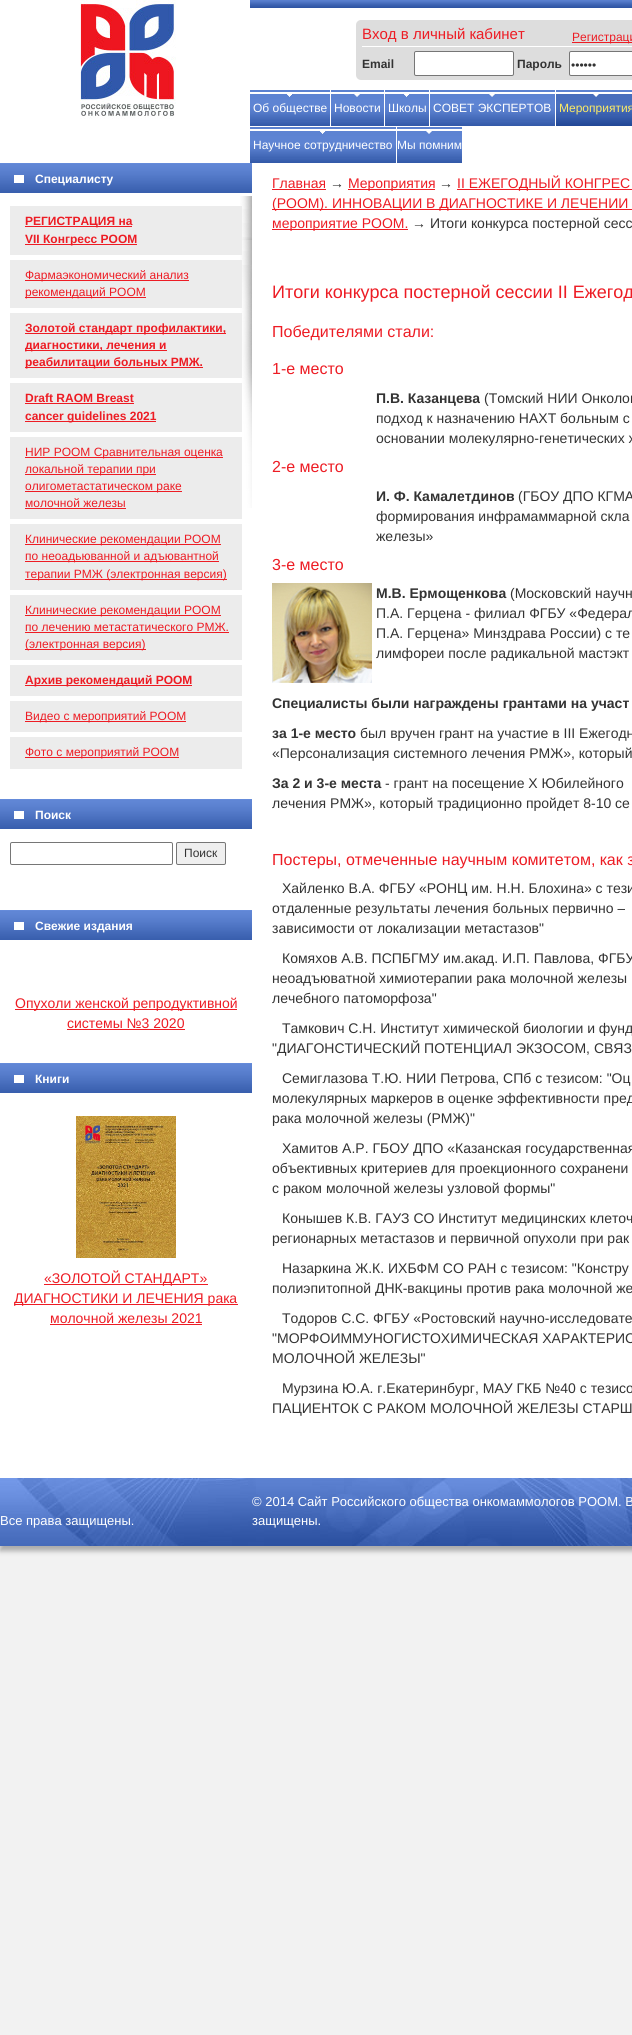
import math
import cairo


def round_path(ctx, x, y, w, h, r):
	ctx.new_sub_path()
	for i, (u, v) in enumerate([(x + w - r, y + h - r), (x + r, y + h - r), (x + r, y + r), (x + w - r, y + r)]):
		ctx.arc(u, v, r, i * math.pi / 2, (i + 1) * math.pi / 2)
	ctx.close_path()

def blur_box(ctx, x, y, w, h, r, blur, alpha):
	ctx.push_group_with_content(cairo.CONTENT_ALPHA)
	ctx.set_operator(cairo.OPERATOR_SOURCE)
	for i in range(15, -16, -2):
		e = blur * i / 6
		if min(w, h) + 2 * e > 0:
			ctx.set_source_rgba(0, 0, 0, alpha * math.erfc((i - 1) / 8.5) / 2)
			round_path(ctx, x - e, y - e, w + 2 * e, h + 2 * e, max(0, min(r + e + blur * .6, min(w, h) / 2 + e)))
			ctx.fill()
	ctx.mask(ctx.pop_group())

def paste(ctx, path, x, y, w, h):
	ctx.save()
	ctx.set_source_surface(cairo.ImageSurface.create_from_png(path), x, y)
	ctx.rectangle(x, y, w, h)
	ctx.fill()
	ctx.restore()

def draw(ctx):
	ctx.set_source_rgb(0.949, 0.949, 0.949)
	ctx.paint()
	ctx.set_source_rgb(0.667, 0.667, 0.667)
	blur_box(ctx, 0, 5, 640, 1546, 0, 2.5, 1)
	ctx.set_source_rgb(1, 1, 1)
	ctx.rectangle(0, 8, 632, 1470)
	ctx.fill()
	paste(ctx, 'media/1.png', 250, 0, 382, 8)
	ctx.rectangle(0, 0, 250, 8)
	ctx.fill()
	paste(ctx, 'media/2.png', 80, 0, 96, 119)
	ctx.set_source_rgb(0.867, 0.867, 0.867)
	round_path(ctx, 356, 20, 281, 60, 5)
	ctx.fill()
	ctx.set_source_rgb(1, 1, 1)
	ctx.rectangle(362, 46, 270, 1)
	ctx.fill()
	ctx.select_font_face('Liberation Sans')
	ctx.set_font_size(15)
	ctx.set_source_rgb(0.929, 0.11, 0.141)
	ctx.move_to(362, 39)
	ctx.show_text('Вход в личный кабинет')
	ctx.rectangle(572, 42, 60, 1)
	ctx.fill()
	ctx.set_font_size(12)
	ctx.move_to(572, 41)
	ctx.show_text('Регистраци')
	ctx.select_font_face('Liberation Sans', cairo.FONT_SLANT_NORMAL, cairo.FONT_WEIGHT_BOLD)
	ctx.set_source_rgb(0.2, 0.2, 0.2)
	ctx.move_to(362, 68)
	ctx.show_text('Email')
	ctx.set_source_rgb(1, 1, 1)
	round_path(ctx, 414.5, 51.5, 99, 24, 1.5)
	ctx.fill_preserve()
	ctx.set_source_rgb(0.463, 0.463, 0.463)
	ctx.set_line_width(1)
	ctx.stroke()
	ctx.set_source_rgb(0.2, 0.2, 0.2)
	ctx.move_to(517, 68)
	ctx.show_text('Пароль')
	ctx.set_source_rgb(1, 1, 1)
	round_path(ctx, 569.5, 51.5, 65, 24, 1.5)
	ctx.fill_preserve()
	ctx.set_source_rgb(0.463, 0.463, 0.463)
	ctx.stroke()
	ctx.select_font_face('Liberation Sans')
	ctx.set_source_rgb(0.2, 0.2, 0.2)
	ctx.move_to(571, 69)
	ctx.show_text('••••••')
	paste(ctx, 'media/3.png', 250, 90, 80, 36)
	ctx.set_source_rgb(1, 1, 1)
	ctx.move_to(253, 112)
	ctx.show_text('Об обществе')
	paste(ctx, 'media/4.png', 331, 90, 53, 36)
	ctx.move_to(334, 112)
	ctx.show_text('Новости')
	paste(ctx, 'media/5.png', 385, 90, 44, 36)
	ctx.move_to(388, 112)
	ctx.show_text('Школы')
	paste(ctx, 'media/6.png', 430, 90, 125, 36)
	ctx.move_to(433, 112)
	ctx.show_text('СОВЕТ ЭКСПЕРТОВ')
	paste(ctx, 'media/7.png', 556, 90, 76, 36)
	ctx.set_source_rgb(0.988, 0.918, 0.392)
	ctx.move_to(559, 112)
	ctx.show_text('Мероприятия')
	paste(ctx, 'media/8.png', 250, 127, 146, 36)
	ctx.set_source_rgb(1, 1, 1)
	ctx.move_to(253, 149)
	ctx.show_text('Научное сотрудничество')
	paste(ctx, 'media/9.png', 397, 127, 65, 36)
	ctx.move_to(397, 149)
	ctx.show_text('Мы помним')
	paste(ctx, 'media/10.png', 0, 163, 252, 30)
	ctx.select_font_face('Liberation Sans', cairo.FONT_SLANT_NORMAL, cairo.FONT_WEIGHT_BOLD)
	ctx.move_to(35, 183)
	ctx.show_text('Специалисту')
	paste(ctx, 'media/11.png', 240, 196, 12, 312)
	ctx.set_source_rgb(0.925, 0.925, 0.925)
	ctx.rectangle(10, 206, 232, 49)
	ctx.fill()
	ctx.set_source_rgb(0.929, 0.11, 0.141)
	ctx.rectangle(25, 226, 107, 1)
	ctx.fill()
	ctx.move_to(25, 225)
	ctx.show_text('РЕГИСТРАЦИЯ на')
	ctx.rectangle(25, 244, 112, 1)
	ctx.fill()
	ctx.move_to(25, 243)
	ctx.show_text('VII Конгресс РООМ')
	ctx.set_source_rgb(0.925, 0.925, 0.925)
	ctx.rectangle(10, 260, 232, 48)
	ctx.fill()
	ctx.set_source_rgb(0.929, 0.11, 0.141)
	ctx.rectangle(25, 280, 164, 1)
	ctx.fill()
	ctx.select_font_face('Liberation Sans')
	ctx.move_to(25, 279)
	ctx.show_text('Фармаэкономический анализ')
	ctx.rectangle(25, 297, 121, 1)
	ctx.fill()
	ctx.move_to(25, 296)
	ctx.show_text('рекомендаций РООМ')
	ctx.set_source_rgb(0.925, 0.925, 0.925)
	ctx.rectangle(10, 313, 232, 65)
	ctx.fill()
	ctx.set_source_rgb(0.929, 0.11, 0.141)
	ctx.rectangle(25, 333, 201, 1)
	ctx.fill()
	ctx.select_font_face('Liberation Sans', cairo.FONT_SLANT_NORMAL, cairo.FONT_WEIGHT_BOLD)
	ctx.move_to(25, 332)
	ctx.show_text('Золотой стандарт профилактики,')
	ctx.rectangle(25, 350, 142, 1)
	ctx.fill()
	ctx.move_to(25, 349)
	ctx.show_text('диагностики, лечения и')
	ctx.rectangle(25, 367, 178, 1)
	ctx.fill()
	ctx.move_to(25, 366)
	ctx.show_text('реабилитации больных РМЖ.')
	ctx.set_source_rgb(0.925, 0.925, 0.925)
	ctx.rectangle(10, 383, 232, 49)
	ctx.fill()
	ctx.set_source_rgb(0.929, 0.11, 0.141)
	ctx.move_to(25, 402)
	ctx.show_text('Draft RAOM Breast')
	ctx.rectangle(25, 403, 109, 1)
	ctx.fill()
	ctx.rectangle(25, 421, 131, 1)
	ctx.fill()
	ctx.move_to(25, 420)
	ctx.show_text('cancer guidelines 2021')
	ctx.set_source_rgb(0.925, 0.925, 0.925)
	ctx.rectangle(10, 437, 232, 82)
	ctx.fill()
	ctx.set_source_rgb(0.929, 0.11, 0.141)
	ctx.rectangle(25, 457, 198, 1)
	ctx.fill()
	ctx.select_font_face('Liberation Sans')
	ctx.move_to(25, 456)
	ctx.show_text('НИР РООМ Сравнительная оценка')
	ctx.rectangle(25, 474, 131, 1)
	ctx.fill()
	ctx.move_to(25, 473)
	ctx.show_text('локальной терапии при')
	ctx.rectangle(25, 491, 157, 1)
	ctx.fill()
	ctx.move_to(25, 490)
	ctx.show_text('олигометастатическом раке')
	ctx.move_to(25, 507)
	ctx.show_text('молочной железы')
	ctx.rectangle(25, 508, 101, 1)
	ctx.fill()
	ctx.set_source_rgb(0.925, 0.925, 0.925)
	ctx.rectangle(10, 524, 232, 66)
	ctx.fill()
	ctx.set_source_rgb(0.929, 0.11, 0.141)
	ctx.rectangle(25, 544, 196, 1)
	ctx.fill()
	ctx.move_to(25, 543)
	ctx.show_text('Клинические рекомендации РООМ')
	ctx.rectangle(25, 561, 194, 1)
	ctx.fill()
	ctx.move_to(25, 560)
	ctx.show_text('по неоадьюванной и адъювантной')
	ctx.rectangle(25, 579, 202, 1)
	ctx.fill()
	ctx.move_to(25, 578)
	ctx.show_text('терапии РМЖ (электронная версия)')
	ctx.set_source_rgb(0.925, 0.925, 0.925)
	ctx.rectangle(10, 595, 232, 65)
	ctx.fill()
	ctx.set_source_rgb(0.929, 0.11, 0.141)
	ctx.rectangle(25, 615, 196, 1)
	ctx.fill()
	ctx.move_to(25, 614)
	ctx.show_text('Клинические рекомендации РООМ')
	ctx.move_to(25, 631)
	ctx.show_text('по лечению метастатического РМЖ.')
	ctx.rectangle(25, 632, 204, 1)
	ctx.fill()
	ctx.rectangle(25, 649, 121, 1)
	ctx.fill()
	ctx.move_to(25, 648)
	ctx.show_text('(электронная версия)')
	ctx.set_source_rgb(0.925, 0.925, 0.925)
	ctx.rectangle(10, 665, 232, 31)
	ctx.fill()
	ctx.set_source_rgb(0.929, 0.11, 0.141)
	ctx.rectangle(25, 685, 167, 1)
	ctx.fill()
	ctx.select_font_face('Liberation Sans', cairo.FONT_SLANT_NORMAL, cairo.FONT_WEIGHT_BOLD)
	ctx.move_to(25, 684)
	ctx.show_text('Архив рекомендаций РООМ')
	ctx.set_source_rgb(0.925, 0.925, 0.925)
	ctx.rectangle(10, 701, 232, 31)
	ctx.fill()
	ctx.set_source_rgb(0.929, 0.11, 0.141)
	ctx.rectangle(25, 721, 161, 1)
	ctx.fill()
	ctx.select_font_face('Liberation Sans')
	ctx.move_to(25, 720)
	ctx.show_text('Видео с мероприятий РООМ')
	ctx.set_source_rgb(0.925, 0.925, 0.925)
	ctx.rectangle(10, 737, 232, 32)
	ctx.fill()
	ctx.set_source_rgb(0.929, 0.11, 0.141)
	ctx.rectangle(25, 757, 154, 1)
	ctx.fill()
	ctx.move_to(25, 756)
	ctx.show_text('Фото с мероприятий РООМ')
	paste(ctx, 'media/10.png', 0, 799, 252, 30)
	ctx.select_font_face('Liberation Sans', cairo.FONT_SLANT_NORMAL, cairo.FONT_WEIGHT_BOLD)
	ctx.set_source_rgb(1, 1, 1)
	ctx.move_to(35, 819)
	ctx.show_text('Поиск')
	round_path(ctx, 10.5, 842.5, 162, 22, 1.5)
	ctx.set_source_rgb(0.463, 0.463, 0.463)
	ctx.stroke()
	ctx.set_source_rgb(0.937, 0.937, 0.937)
	round_path(ctx, 176.5, 842.5, 49, 22, 1.5)
	ctx.fill_preserve()
	ctx.set_source_rgb(0.463, 0.463, 0.463)
	ctx.stroke()
	ctx.select_font_face('Liberation Sans')
	ctx.set_source_rgb(0.2, 0.2, 0.2)
	ctx.move_to(184, 857)
	ctx.show_text('Поиск')
	paste(ctx, 'media/10.png', 0, 910, 252, 30)
	ctx.select_font_face('Liberation Sans', cairo.FONT_SLANT_NORMAL, cairo.FONT_WEIGHT_BOLD)
	ctx.set_source_rgb(1, 1, 1)
	ctx.move_to(35, 930)
	ctx.show_text('Свежие издания')
	ctx.set_source_rgb(0.929, 0.11, 0.141)
	ctx.rectangle(15, 1009, 222, 1)
	ctx.fill()
	ctx.select_font_face('Liberation Sans')
	ctx.set_font_size(14)
	ctx.move_to(15, 1008)
	ctx.show_text('Опухоли женской репродуктивной')
	ctx.move_to(67, 1028)
	ctx.show_text('системы №3 2020')
	ctx.rectangle(67, 1029, 118, 1)
	ctx.fill()
	paste(ctx, 'media/10.png', 0, 1063, 252, 30)
	ctx.select_font_face('Liberation Sans', cairo.FONT_SLANT_NORMAL, cairo.FONT_WEIGHT_BOLD)
	ctx.set_font_size(12)
	ctx.set_source_rgb(1, 1, 1)
	ctx.move_to(35, 1083)
	ctx.show_text('Книги')
	paste(ctx, 'media/12.png', 76, 1116, 100, 142)
	ctx.set_source_rgb(0.929, 0.11, 0.141)
	ctx.rectangle(44, 1284, 164, 1)
	ctx.fill()
	ctx.select_font_face('Liberation Sans')
	ctx.set_font_size(14)
	ctx.move_to(44, 1283)
	ctx.show_text('«ЗОЛОТОЙ СТАНДАРТ»')
	ctx.rectangle(14, 1304, 224, 1)
	ctx.fill()
	ctx.move_to(14, 1303)
	ctx.show_text('ДИАГНОСТИКИ И ЛЕЧЕНИЯ рака')
	ctx.move_to(50, 1323)
	ctx.show_text('молочной железы 2021')
	ctx.rectangle(50, 1324, 152, 1)
	ctx.fill()
	ctx.move_to(272, 188)
	ctx.show_text('Главная')
	ctx.rectangle(272, 189, 54, 1)
	ctx.fill()
	ctx.set_source_rgb(0.2, 0.2, 0.2)
	ctx.move_to(330, 188)
	ctx.show_text('→')
	ctx.set_source_rgb(0.929, 0.11, 0.141)
	ctx.rectangle(348, 189, 87, 1)
	ctx.fill()
	ctx.move_to(348, 188)
	ctx.show_text('Мероприятия')
	ctx.set_source_rgb(0.2, 0.2, 0.2)
	ctx.move_to(439, 188)
	ctx.show_text('→')
	ctx.set_source_rgb(0.929, 0.11, 0.141)
	ctx.rectangle(457, 189, 175, 1)
	ctx.fill()
	ctx.move_to(457, 188)
	ctx.show_text('II ЕЖЕГОДНЫЙ КОНГРЕС')
	ctx.rectangle(272, 209, 360, 1)
	ctx.fill()
	ctx.move_to(272, 208)
	ctx.show_text('(РООМ). ИННОВАЦИИ В ДИАГНОСТИКЕ И ЛЕЧЕНИИ')
	ctx.rectangle(272, 229, 136, 1)
	ctx.fill()
	ctx.move_to(272, 228)
	ctx.show_text('мероприятие РООМ.')
	ctx.set_source_rgb(0.2, 0.2, 0.2)
	ctx.move_to(412, 228)
	ctx.show_text('→ Итоги конкурса постерной сесс')
	ctx.set_font_size(18)
	ctx.set_source_rgb(0.929, 0.11, 0.141)
	ctx.move_to(272, 298)
	ctx.show_text('Итоги конкурса постерной сессии II Ежегод')
	ctx.set_font_size(16)
	ctx.move_to(272, 337)
	ctx.show_text('Победителями стали:')
	ctx.move_to(272, 374)
	ctx.show_text('1-е место')
	ctx.select_font_face('Liberation Sans', cairo.FONT_SLANT_NORMAL, cairo.FONT_WEIGHT_BOLD)
	ctx.set_font_size(14)
	ctx.set_source_rgb(0.2, 0.2, 0.2)
	ctx.move_to(376, 403)
	ctx.show_text('П.В. Казанцева')
	ctx.select_font_face('Liberation Sans')
	for x, y, s in [
		(484, 403, '(Томский НИИ Онколог'),
		(376, 423, 'подход к назначению НАХТ больным с'),
		(376, 443, 'основании молекулярно-генетических х'),
	]:
		ctx.move_to(x, y)
		ctx.show_text(s)
	ctx.set_font_size(16)
	ctx.set_source_rgb(0.929, 0.11, 0.141)
	ctx.move_to(272, 472)
	ctx.show_text('2-е место')
	ctx.select_font_face('Liberation Sans', cairo.FONT_SLANT_NORMAL, cairo.FONT_WEIGHT_BOLD)
	ctx.set_font_size(14)
	ctx.set_source_rgb(0.2, 0.2, 0.2)
	ctx.move_to(376, 501)
	ctx.show_text('И. Ф. Камалетдинов')
	ctx.select_font_face('Liberation Sans')
	for x, y, s in [
		(518, 501, '(ГБОУ ДПО КГМА'),
		(376, 521, 'формирования инфрамаммарной скла'),
		(376, 541, 'железы»'),
	]:
		ctx.move_to(x, y)
		ctx.show_text(s)
	ctx.set_font_size(16)
	ctx.set_source_rgb(0.929, 0.11, 0.141)
	ctx.move_to(272, 570)
	ctx.show_text('3-е место')
	paste(ctx, 'media/13.png', 272, 583, 100, 100)
	ctx.select_font_face('Liberation Sans', cairo.FONT_SLANT_NORMAL, cairo.FONT_WEIGHT_BOLD)
	ctx.set_font_size(14)
	ctx.set_source_rgb(0.2, 0.2, 0.2)
	ctx.move_to(376, 598)
	ctx.show_text('М.В. Ермощенкова')
	ctx.select_font_face('Liberation Sans')
	for x, y, s in [
		(510, 598, '(Московский научн'),
		(376, 618, 'П.А. Герцена - филиал ФГБУ «Федерал'),
		(376, 638, 'П.А. Герцена» Минздрава России) с те'),
		(376, 658, 'лимфореи после радикальной мастэкт'),
	]:
		ctx.move_to(x, y)
		ctx.show_text(s)
	ctx.select_font_face('Liberation Sans', cairo.FONT_SLANT_NORMAL, cairo.FONT_WEIGHT_BOLD)
	ctx.move_to(272, 708)
	ctx.show_text('Специалисты были награждены грантами на участ')
	ctx.move_to(272, 738)
	ctx.show_text('за 1-е место')
	ctx.select_font_face('Liberation Sans')
	ctx.move_to(360, 738)
	ctx.show_text('был вручен грант на участие в III Ежегодн')
	ctx.move_to(272, 758)
	ctx.show_text('«Персонализация системного лечения РМЖ», который')
	ctx.select_font_face('Liberation Sans', cairo.FONT_SLANT_NORMAL, cairo.FONT_WEIGHT_BOLD)
	ctx.move_to(272, 788)
	ctx.show_text('За 2 и 3-е места')
	ctx.select_font_face('Liberation Sans')
	ctx.move_to(385, 788)
	ctx.show_text('- грант на посещение X Юбилейного')
	ctx.move_to(272, 808)
	ctx.show_text('лечения РМЖ», который традиционно пройдет 8-10 се')
	ctx.set_font_size(16)
	ctx.set_source_rgb(0.929, 0.11, 0.141)
	ctx.move_to(272, 865)
	ctx.show_text('Постеры, отмеченные научным комитетом, как з')
	ctx.set_font_size(14)
	ctx.set_source_rgb(0.2, 0.2, 0.2)
	for x, y, s in [
		(282, 893, 'Хайленко В.А. ФГБУ «РОНЦ им. Н.Н. Блохина» с тези'),
		(272, 913, 'отдаленные результаты лечения больных первично –'),
		(272, 933, 'зависимости от локализации метастазов"'),
		(282, 963, 'Комяхов А.В. ПСПБГМУ им.акад. И.П. Павлова, ФГБУ'),
		(272, 983, 'неоадъюватной химиотерапии рака молочной железы'),
		(272, 1003, 'лечебного патоморфоза"'),
		(282, 1033, 'Тамкович С.Н. Институт химической биологии и фунд'),
		(272, 1053, '"ДИАГОНСТИЧЕСКИЙ ПОТЕНЦИАЛ ЭКЗОСОМ, СВЯЗ'),
		(282, 1083, 'Семиглазова Т.Ю. НИИ Петрова, СПб с тезисом: "Оц'),
		(272, 1103, 'молекулярных маркеров в оценке эффективности пред'),
		(272, 1123, 'рака молочной железы (РМЖ)"'),
		(282, 1153, 'Хамитов А.Р. ГБОУ ДПО «Казанская государственная'),
		(272, 1173, 'объективных критериев для проекционного сохранени'),
		(272, 1193, 'с раком молочной железы узловой формы"'),
		(282, 1223, 'Конышев К.В. ГАУЗ СО Институт медицинских клеточ'),
		(272, 1243, 'регионарных метастазов и первичной опухоли при рак'),
		(282, 1273, 'Назаркина Ж.К. ИХБФМ СО РАН с тезисом: "Констру'),
		(272, 1293, 'полиэпитопной ДНК-вакцины против рака молочной же'),
		(282, 1323, 'Тодоров С.С. ФГБУ «Ростовский научно-исследовате'),
		(272, 1343, '"МОРФОИММУНОГИСТОХИМИЧЕСКАЯ ХАРАКТЕРИС'),
		(272, 1363, 'МОЛОЧНОЙ ЖЕЛЕЗЫ"'),
		(282, 1393, 'Мурзина Ю.А. г.Екатеринбург, МАУ ГКБ №40 с тезисо'),
		(272, 1413, 'ПАЦИЕНТОК С РАКОМ МОЛОЧНОЙ ЖЕЛЕЗЫ СТАРШ'),
	]:
		ctx.move_to(x, y)
		ctx.show_text(s)
	paste(ctx, 'media/14.png', 0, 1478, 632, 68)
	ctx.set_font_size(13)
	ctx.set_source_rgb(1, 1, 1)
	for x, y, s in [
		(0, 1525, 'Все права защищены.'),
		(252, 1506, '© 2014 Сайт Российского общества онкомаммологов РООМ. В'),
		(252, 1525, 'защищены.'),
	]:
		ctx.move_to(x, y)
		ctx.show_text(s)


surface = cairo.ImageSurface(cairo.FORMAT_RGB24, 632, 2035)
ctx = cairo.Context(surface)
options = cairo.FontOptions()
options.set_hint_metrics(cairo.HINT_METRICS_OFF)
options.set_hint_style(cairo.HINT_STYLE_NONE)
ctx.set_font_options(options)
ctx.set_miter_limit(4)
draw(ctx)
surface.write_to_png('image.png')
